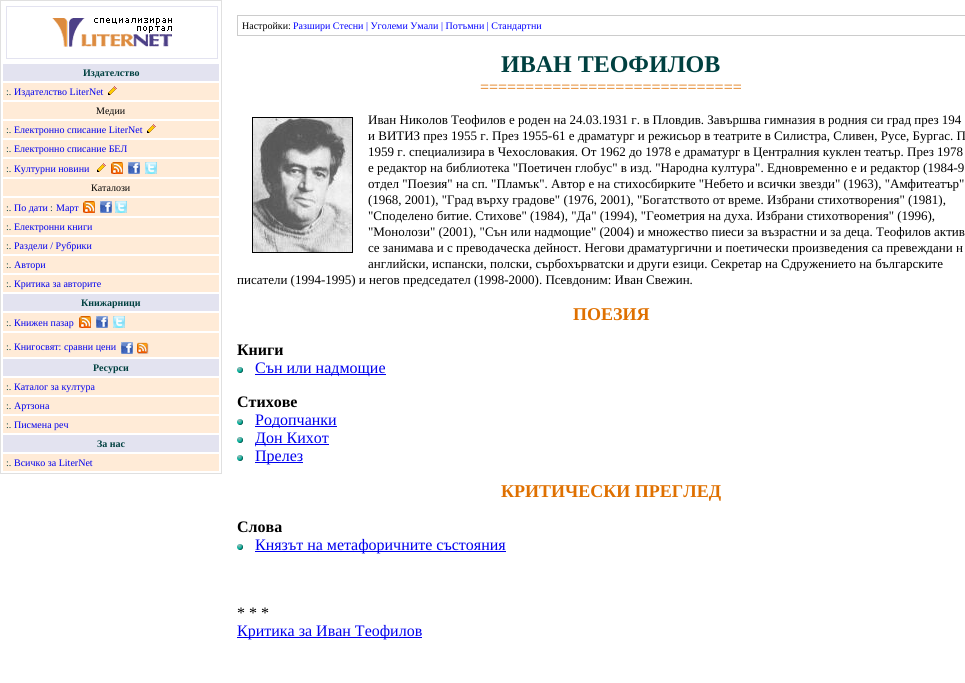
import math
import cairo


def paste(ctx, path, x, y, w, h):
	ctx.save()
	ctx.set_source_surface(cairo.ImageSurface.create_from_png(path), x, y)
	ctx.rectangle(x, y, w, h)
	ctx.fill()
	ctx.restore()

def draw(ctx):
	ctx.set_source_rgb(1, 1, 1)
	ctx.paint()
	ctx.rectangle(0.5, 0.5, 221, 473)
	ctx.set_source_rgb(0.878, 0.878, 0.878)
	ctx.set_line_width(1)
	ctx.stroke()
	ctx.rectangle(6.5, 6.5, 211, 52)
	ctx.set_source_rgb(0.89, 0.89, 0.941)
	ctx.stroke()
	paste(ctx, 'media/1.png', 52, 18, 120, 29)
	ctx.rectangle(3, 64, 216, 17)
	ctx.fill()
	ctx.select_font_face('Liberation Serif', cairo.FONT_SLANT_NORMAL, cairo.FONT_WEIGHT_BOLD)
	ctx.set_font_size(10)
	ctx.set_source_rgb(0, 0.251, 0.251)
	ctx.move_to(83, 76)
	ctx.show_text('Издателство')
	ctx.set_source_rgb(1, 0.918, 0.843)
	ctx.rectangle(3, 83, 216, 17)
	ctx.fill()
	ctx.select_font_face('Liberation Serif')
	ctx.set_source_rgb(0, 0.251, 0.251)
	ctx.move_to(6, 95)
	ctx.show_text(':.')
	ctx.set_source_rgb(0, 0, 0.933)
	ctx.move_to(14, 95)
	ctx.show_text('Издателство LiterNet')
	paste(ctx, 'media/2.png', 108, 86, 9, 9)
	ctx.set_source_rgb(1, 0.918, 0.843)
	ctx.rectangle(3, 102, 216, 17)
	ctx.fill()
	ctx.set_source_rgb(0, 0, 0)
	ctx.move_to(96, 114)
	ctx.show_text('Медии')
	ctx.set_source_rgb(1, 0.918, 0.843)
	ctx.rectangle(3, 121, 216, 17)
	ctx.fill()
	ctx.set_source_rgb(0, 0.251, 0.251)
	ctx.move_to(6, 133)
	ctx.show_text(':.')
	ctx.set_source_rgb(0, 0, 0.933)
	ctx.move_to(14, 133)
	ctx.show_text('Електронно списание LiterNet')
	paste(ctx, 'media/2.png', 147, 124, 9, 9)
	ctx.set_source_rgb(1, 0.918, 0.843)
	ctx.rectangle(3, 140, 216, 17)
	ctx.fill()
	ctx.set_source_rgb(0, 0.251, 0.251)
	ctx.move_to(6, 152)
	ctx.show_text(':.')
	ctx.set_source_rgb(0, 0, 0.933)
	ctx.move_to(14, 152)
	ctx.show_text('Електронно списание БЕЛ')
	ctx.set_source_rgb(1, 0.918, 0.843)
	ctx.rectangle(3, 159, 216, 18)
	ctx.fill()
	ctx.set_source_rgb(0, 0.251, 0.251)
	ctx.move_to(6, 172)
	ctx.show_text(':.')
	ctx.set_source_rgb(0, 0, 0.933)
	ctx.move_to(14, 172)
	ctx.show_text('Културни новини')
	paste(ctx, 'media/2.png', 97, 163, 9, 9)
	paste(ctx, 'media/3.png', 111, 162, 12, 12)
	paste(ctx, 'media/4.png', 128, 162, 12, 12)
	paste(ctx, 'media/5.png', 145, 162, 12, 12)
	ctx.set_source_rgb(1, 0.918, 0.843)
	ctx.rectangle(3, 179, 216, 17)
	ctx.fill()
	ctx.set_source_rgb(0, 0, 0)
	ctx.move_to(91, 191)
	ctx.show_text('Каталози')
	ctx.set_source_rgb(1, 0.918, 0.843)
	ctx.rectangle(3, 198, 216, 18)
	ctx.fill()
	ctx.set_source_rgb(0, 0.251, 0.251)
	ctx.move_to(6, 211)
	ctx.show_text(':.')
	ctx.set_source_rgb(0, 0, 0.933)
	ctx.move_to(14, 211)
	ctx.show_text('По дати')
	ctx.set_source_rgb(0, 0.251, 0.251)
	ctx.move_to(50, 211)
	ctx.show_text(':')
	ctx.set_source_rgb(0, 0, 0.933)
	ctx.move_to(56, 211)
	ctx.show_text('Март')
	paste(ctx, 'media/3.png', 83, 201, 12, 12)
	paste(ctx, 'media/4.png', 100, 201, 12, 12)
	paste(ctx, 'media/5.png', 115, 201, 12, 12)
	ctx.set_source_rgb(1, 0.918, 0.843)
	ctx.rectangle(3, 218, 216, 17)
	ctx.fill()
	ctx.set_source_rgb(0, 0.251, 0.251)
	ctx.move_to(6, 230)
	ctx.show_text(':.')
	ctx.set_source_rgb(0, 0, 0.933)
	ctx.move_to(14, 230)
	ctx.show_text('Електронни книги')
	ctx.set_source_rgb(1, 0.918, 0.843)
	ctx.rectangle(3, 237, 216, 17)
	ctx.fill()
	ctx.set_source_rgb(0, 0.251, 0.251)
	ctx.move_to(6, 249)
	ctx.show_text(':.')
	ctx.set_source_rgb(0, 0, 0.933)
	ctx.move_to(14, 249)
	ctx.show_text('Раздели / Рубрики')
	ctx.set_source_rgb(1, 0.918, 0.843)
	ctx.rectangle(3, 256, 216, 17)
	ctx.fill()
	ctx.set_source_rgb(0, 0.251, 0.251)
	ctx.move_to(6, 268)
	ctx.show_text(':.')
	ctx.set_source_rgb(0, 0, 0.933)
	ctx.move_to(14, 268)
	ctx.show_text('Автори')
	ctx.set_source_rgb(1, 0.918, 0.843)
	ctx.rectangle(3, 275, 216, 17)
	ctx.fill()
	ctx.set_source_rgb(0, 0.251, 0.251)
	ctx.move_to(6, 287)
	ctx.show_text(':.')
	ctx.set_source_rgb(0, 0, 0.933)
	ctx.move_to(14, 287)
	ctx.show_text('Критика за авторите')
	ctx.set_source_rgb(0.89, 0.89, 0.941)
	ctx.rectangle(3, 294, 216, 17)
	ctx.fill()
	ctx.select_font_face('Liberation Serif', cairo.FONT_SLANT_NORMAL, cairo.FONT_WEIGHT_BOLD)
	ctx.set_source_rgb(0, 0.251, 0.251)
	ctx.move_to(81, 306)
	ctx.show_text('Книжарници')
	ctx.set_source_rgb(1, 0.918, 0.843)
	ctx.rectangle(3, 313, 216, 18)
	ctx.fill()
	ctx.select_font_face('Liberation Serif')
	ctx.set_source_rgb(0, 0.251, 0.251)
	ctx.move_to(6, 326)
	ctx.show_text(':.')
	ctx.set_source_rgb(0, 0, 0.933)
	ctx.move_to(14, 326)
	ctx.show_text('Книжен пазар')
	paste(ctx, 'media/3.png', 79, 316, 12, 12)
	paste(ctx, 'media/4.png', 96, 316, 12, 12)
	paste(ctx, 'media/6.png', 113, 316, 12, 12)
	ctx.set_source_rgb(1, 0.918, 0.843)
	ctx.rectangle(3, 333, 216, 24)
	ctx.fill()
	ctx.set_source_rgb(0, 0.251, 0.251)
	ctx.move_to(6, 350)
	ctx.show_text(':.')
	ctx.set_source_rgb(0, 0, 0.933)
	ctx.move_to(14, 350)
	ctx.show_text('Книгосвят: сравни цени')
	paste(ctx, 'media/4.png', 121, 342, 12, 12)
	paste(ctx, 'media/7.png', 137, 342, 12, 12)
	ctx.set_source_rgb(0.89, 0.89, 0.941)
	ctx.rectangle(3, 359, 216, 17)
	ctx.fill()
	ctx.select_font_face('Liberation Serif', cairo.FONT_SLANT_NORMAL, cairo.FONT_WEIGHT_BOLD)
	ctx.set_source_rgb(0, 0.251, 0.251)
	ctx.move_to(93, 371)
	ctx.show_text('Ресурси')
	ctx.set_source_rgb(1, 0.918, 0.843)
	ctx.rectangle(3, 378, 216, 17)
	ctx.fill()
	ctx.select_font_face('Liberation Serif')
	ctx.set_source_rgb(0, 0.251, 0.251)
	ctx.move_to(6, 390)
	ctx.show_text(':.')
	ctx.set_source_rgb(0, 0, 0.933)
	ctx.move_to(14, 390)
	ctx.show_text('Каталог за култура')
	ctx.set_source_rgb(1, 0.918, 0.843)
	ctx.rectangle(3, 397, 216, 17)
	ctx.fill()
	ctx.set_source_rgb(0, 0.251, 0.251)
	ctx.move_to(6, 409)
	ctx.show_text(':.')
	ctx.set_source_rgb(0, 0, 0.933)
	ctx.move_to(14, 409)
	ctx.show_text('Артзона')
	ctx.set_source_rgb(1, 0.918, 0.843)
	ctx.rectangle(3, 416, 216, 17)
	ctx.fill()
	ctx.set_source_rgb(0, 0.251, 0.251)
	ctx.move_to(6, 428)
	ctx.show_text(':.')
	ctx.set_source_rgb(0, 0, 0.933)
	ctx.move_to(14, 428)
	ctx.show_text('Писмена реч')
	ctx.set_source_rgb(0.89, 0.89, 0.941)
	ctx.rectangle(3, 435, 216, 17)
	ctx.fill()
	ctx.select_font_face('Liberation Serif', cairo.FONT_SLANT_NORMAL, cairo.FONT_WEIGHT_BOLD)
	ctx.set_source_rgb(0, 0.251, 0.251)
	ctx.move_to(97, 447)
	ctx.show_text('За нас')
	ctx.set_source_rgb(1, 0.918, 0.843)
	ctx.rectangle(3, 454, 216, 17)
	ctx.fill()
	ctx.select_font_face('Liberation Serif')
	ctx.set_source_rgb(0, 0.251, 0.251)
	ctx.move_to(6, 466)
	ctx.show_text(':.')
	ctx.set_source_rgb(0, 0, 0.933)
	ctx.move_to(14, 466)
	ctx.show_text('Всичко за LiterNet')
	ctx.rectangle(237.5, 15.5, 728, 20)
	ctx.set_source_rgb(0.8, 0.8, 0.8)
	ctx.stroke()
	ctx.set_source_rgb(0, 0, 0)
	ctx.move_to(242, 29)
	ctx.show_text('Настройки:')
	ctx.set_source_rgb(0, 0, 1)
	ctx.move_to(293, 29)
	ctx.show_text('Разшири Стесни | Уголеми Умали | Потъмни | Стандартни')
	ctx.select_font_face('Liberation Serif', cairo.FONT_SLANT_NORMAL, cairo.FONT_WEIGHT_BOLD)
	ctx.set_font_size(24)
	ctx.set_source_rgb(0, 0.251, 0.251)
	ctx.move_to(501, 72)
	ctx.show_text('ИВАН ТЕОФИЛОВ')
	ctx.select_font_face('Liberation Serif')
	ctx.set_font_size(16)
	ctx.set_source_rgb(0.875, 0.439, 0)
	ctx.move_to(480, 92)
	ctx.show_text('=============================')
	ctx.rectangle(252.5, 117.5, 100, 135)
	ctx.set_source_rgb(0, 0, 0)
	ctx.stroke()
	paste(ctx, 'media/8.png', 253, 118, 99, 134)
	ctx.set_font_size(13)
	for x, y, s in [
		(368, 124, 'Иван Николов Теофилов е роден на 24.03.1931 г. в Пловдив. Завършва гимназия в родния си град през 194'),
		(368, 140, 'и ВИТИЗ през 1955 г. През 1955-61 е драматург и режисьор в театрите в Силистра, Сливен, Русе, Бургас. П'),
		(368, 156, '1959 г. специализира в Чехословакия. От 1962 до 1978 е драматург в Централния куклен театър. През 1978'),
		(368, 172, 'е редактор на библиотека "Поетичен глобус" в изд. "Народна култура". Едновременно е и редактор (1984-9'),
		(368, 188, 'отдел "Поезия" на сп. "Пламък". Автор е на стихосбирките "Небето и всички звезди" (1963), "Амфитеатър"'),
		(368, 204, '(1968, 2001), "Град върху градове" (1976, 2001), "Богатството от време. Избрани стихотворения" (1981),'),
		(368, 220, '"Споделено битие. Стихове" (1984), "Да" (1994), "Геометрия на духа. Избрани стихотворения" (1996),'),
		(368, 236, '"Монолози" (2001), "Сън или надмощие" (2004) и множество пиеси за възрастни и за деца. Теофилов актив'),
		(368, 252, 'се занимава и с преводаческа дейност. Негови драматургични и поетически произведения са превеждани н'),
		(368, 268, 'английски, испански, полски, сърбохърватски и други езици. Секретар на Сдружението на българските'),
		(237, 284, 'писатели (1994-1995) и негов председател (1998-2000). Псевдоним: Иван Свежин.'),
	]:
		ctx.move_to(x, y)
		ctx.show_text(s)
	ctx.select_font_face('Liberation Serif', cairo.FONT_SLANT_NORMAL, cairo.FONT_WEIGHT_BOLD)
	ctx.set_font_size(18)
	ctx.set_source_rgb(0.875, 0.439, 0)
	ctx.move_to(573, 320)
	ctx.show_text('ПОЕЗИЯ')
	ctx.set_font_size(16)
	ctx.set_source_rgb(0, 0, 0)
	ctx.move_to(237, 355)
	ctx.show_text('Книги')
	paste(ctx, 'media/9.png', 237, 367, 6, 6)
	ctx.set_source_rgb(0, 0, 0.933)
	ctx.rectangle(255, 374, 131, 1)
	ctx.fill()
	ctx.select_font_face('Liberation Serif')
	ctx.move_to(255, 373)
	ctx.show_text('Сън или надмощие')
	ctx.select_font_face('Liberation Serif', cairo.FONT_SLANT_NORMAL, cairo.FONT_WEIGHT_BOLD)
	ctx.set_source_rgb(0, 0, 0)
	ctx.move_to(237, 407)
	ctx.show_text('Стихове')
	paste(ctx, 'media/9.png', 237, 419, 6, 6)
	ctx.set_source_rgb(0, 0, 0.933)
	ctx.rectangle(255, 426, 82, 1)
	ctx.fill()
	ctx.select_font_face('Liberation Serif')
	ctx.move_to(255, 425)
	ctx.show_text('Родопчанки')
	paste(ctx, 'media/9.png', 237, 437, 6, 6)
	ctx.rectangle(255, 444, 74, 1)
	ctx.fill()
	ctx.move_to(255, 443)
	ctx.show_text('Дон Кихот')
	paste(ctx, 'media/9.png', 237, 455, 6, 6)
	ctx.rectangle(255, 462, 48, 1)
	ctx.fill()
	ctx.move_to(255, 461)
	ctx.show_text('Прелез')
	ctx.select_font_face('Liberation Serif', cairo.FONT_SLANT_NORMAL, cairo.FONT_WEIGHT_BOLD)
	ctx.set_font_size(18)
	ctx.set_source_rgb(0.875, 0.439, 0)
	ctx.move_to(501, 497)
	ctx.show_text('КРИТИЧЕСКИ ПРЕГЛЕД')
	ctx.set_font_size(16)
	ctx.set_source_rgb(0, 0, 0)
	ctx.move_to(237, 532)
	ctx.show_text('Слова')
	paste(ctx, 'media/9.png', 237, 544, 6, 6)
	ctx.set_source_rgb(0, 0, 0.933)
	ctx.rectangle(255, 551, 251, 1)
	ctx.fill()
	ctx.select_font_face('Liberation Serif')
	ctx.move_to(255, 550)
	ctx.show_text('Князът на метафоричните състояния')
	ctx.set_source_rgb(0, 0, 0)
	ctx.move_to(237, 618)
	ctx.show_text('* * *')
	ctx.set_source_rgb(0, 0, 0.933)
	ctx.rectangle(237, 637, 185, 1)
	ctx.fill()
	ctx.move_to(237, 636)
	ctx.show_text('Критика за Иван Теофилов')


surface = cairo.ImageSurface(cairo.FORMAT_RGB24, 965, 683)
ctx = cairo.Context(surface)
options = cairo.FontOptions()
options.set_hint_metrics(cairo.HINT_METRICS_OFF)
options.set_hint_style(cairo.HINT_STYLE_NONE)
ctx.set_font_options(options)
ctx.set_miter_limit(4)
draw(ctx)
surface.write_to_png('image.png')
